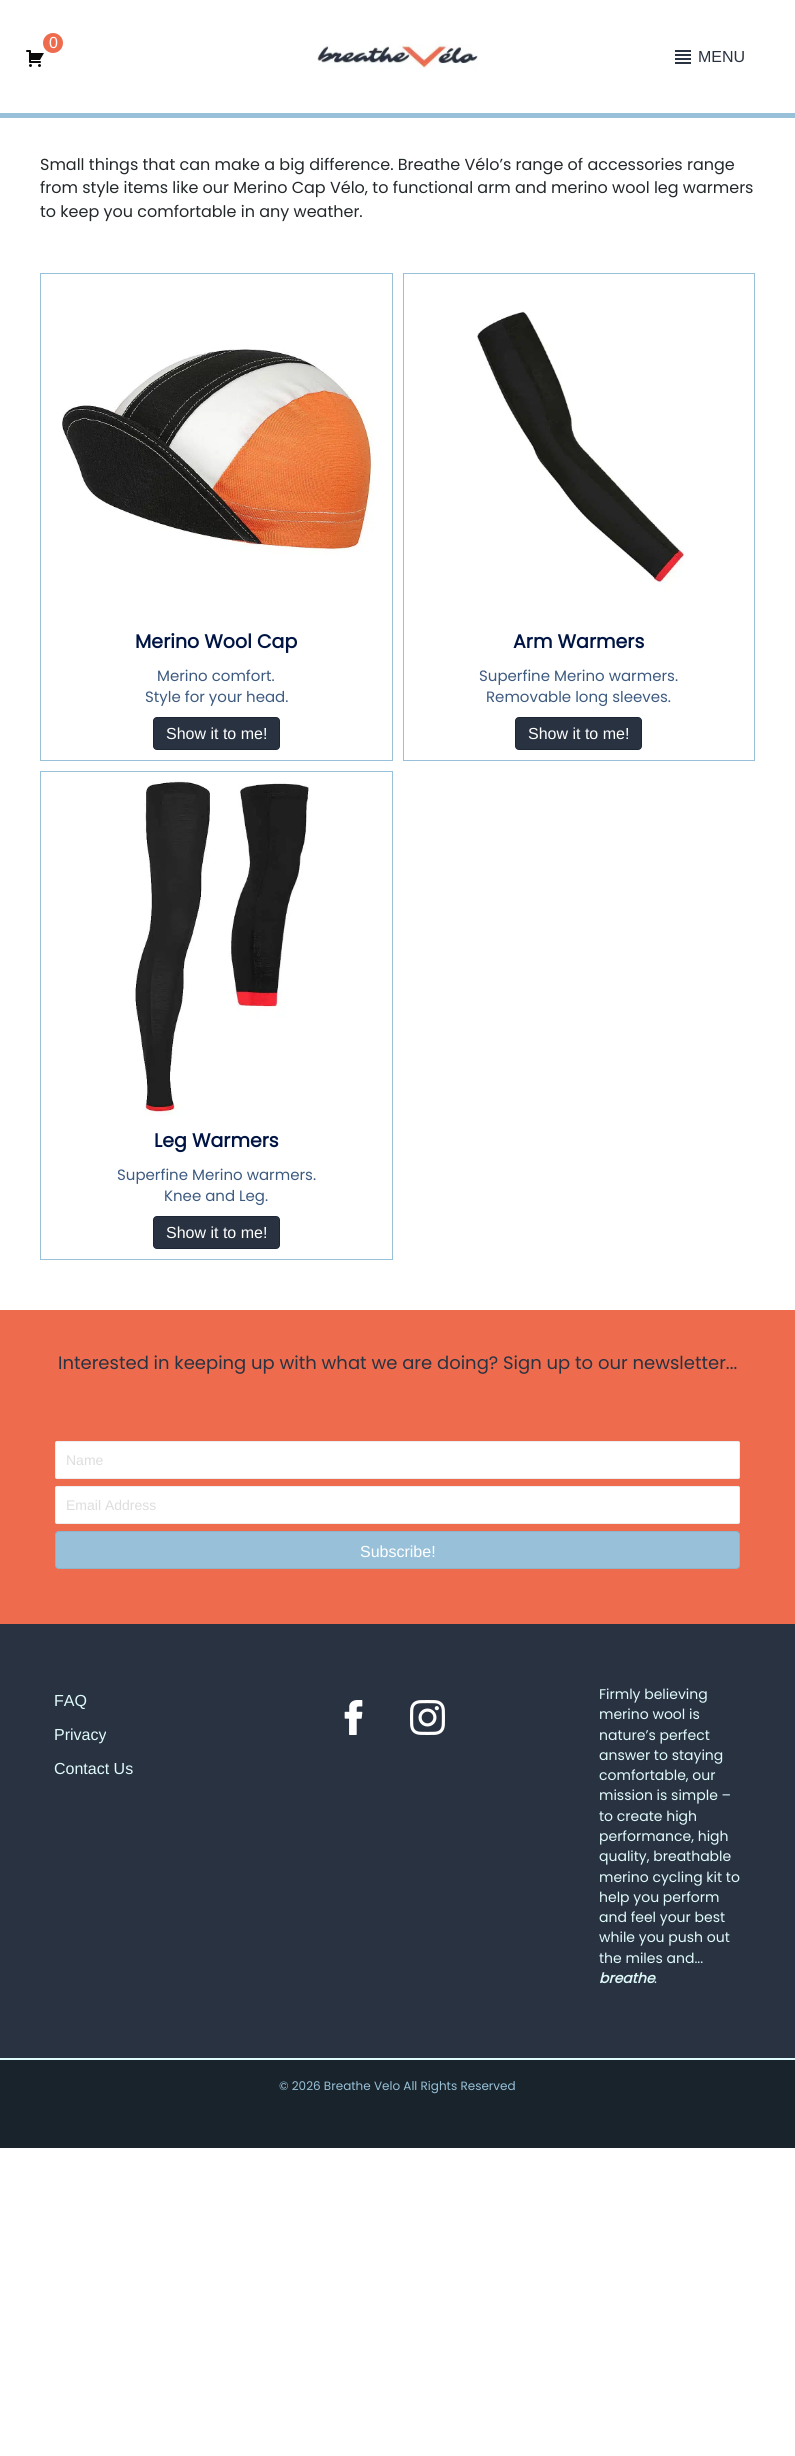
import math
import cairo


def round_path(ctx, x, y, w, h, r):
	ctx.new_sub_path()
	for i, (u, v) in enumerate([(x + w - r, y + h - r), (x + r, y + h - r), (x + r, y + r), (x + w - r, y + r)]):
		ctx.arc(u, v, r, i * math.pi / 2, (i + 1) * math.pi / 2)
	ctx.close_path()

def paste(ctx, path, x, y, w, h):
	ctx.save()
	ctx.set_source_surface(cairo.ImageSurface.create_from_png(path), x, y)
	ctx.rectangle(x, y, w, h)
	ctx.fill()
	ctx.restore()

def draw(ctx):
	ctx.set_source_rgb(1, 1, 1)
	ctx.paint()
	ctx.set_source_rgb(0.596, 0.757, 0.851)
	ctx.rectangle(0, 113, 795, 5)
	ctx.fill()
	paste(ctx, 'media/1.png', 26, 50, 18, 17)
	ctx.set_source_rgb(0.933, 0.424, 0.302)
	ctx.arc(53, 43, 10, 0, 2 * math.pi)
	ctx.fill()
	ctx.select_font_face('Liberation Sans')
	ctx.set_font_size(16)
	ctx.set_source_rgb(1, 1, 1)
	ctx.move_to(49, 48)
	ctx.show_text('0')
	paste(ctx, 'media/2.png', 317, 44, 161, 26)
	paste(ctx, 'media/3.png', 675, 50, 16, 14)
	ctx.set_source_rgb(0.161, 0.196, 0.255)
	ctx.move_to(698, 62)
	ctx.show_text('MENU')
	ctx.select_font_face('Poppins')
	ctx.set_source_rgb(0.137, 0.157, 0.169)
	for x, y, s in [
		(40, 170, 'Small things that can make a big difference. Breathe Vélo’s range of accessories range'),
		(40, 193, 'from style items like our Merino Cap Vélo, to functional arm and merino wool leg warmers'),
		(40, 217, 'to keep you comfortable in any weather.'),
	]:
		ctx.move_to(x, y)
		ctx.show_text(s)
	ctx.rectangle(40.5, 273.5, 352, 487)
	ctx.set_source_rgb(0.596, 0.757, 0.851)
	ctx.set_line_width(1)
	ctx.stroke()
	paste(ctx, 'media/4.png', 62, 349, 313, 206)
	ctx.select_font_face('Poppins', cairo.FONT_SLANT_NORMAL, cairo.FONT_WEIGHT_BOLD)
	ctx.set_font_size(19)
	ctx.set_source_rgb(0, 0.082, 0.267)
	ctx.move_to(135, 648)
	ctx.show_text('Merino Wool Cap')
	ctx.select_font_face('Poppins')
	ctx.set_font_size(15)
	ctx.set_source_rgb(0.239, 0.353, 0.502)
	ctx.move_to(157, 681)
	ctx.show_text('Merino comfort.')
	ctx.move_to(145, 702)
	ctx.show_text('Style for your head.')
	ctx.set_source_rgb(0.161, 0.196, 0.255)
	round_path(ctx, 153.5, 717.5, 126, 32, 3.5)
	ctx.fill_preserve()
	ctx.set_source_rgb(0.114, 0.149, 0.208)
	ctx.stroke()
	ctx.select_font_face('Liberation Sans')
	ctx.set_font_size(16)
	ctx.set_source_rgb(1, 1, 1)
	ctx.move_to(166, 739)
	ctx.show_text('Show it to me!')
	ctx.rectangle(403.5, 273.5, 351, 487)
	ctx.set_source_rgb(0.596, 0.757, 0.851)
	ctx.stroke()
	paste(ctx, 'media/5.png', 477, 311, 208, 277)
	ctx.select_font_face('Poppins', cairo.FONT_SLANT_NORMAL, cairo.FONT_WEIGHT_BOLD)
	ctx.set_font_size(19)
	ctx.set_source_rgb(0, 0.082, 0.267)
	ctx.move_to(513, 648)
	ctx.show_text('Arm Warmers')
	ctx.select_font_face('Poppins')
	ctx.set_font_size(15)
	ctx.set_source_rgb(0.239, 0.353, 0.502)
	ctx.move_to(479, 681)
	ctx.show_text('Superfine Merino warmers.')
	ctx.move_to(486, 702)
	ctx.show_text('Removable long sleeves.')
	ctx.set_source_rgb(0.161, 0.196, 0.255)
	round_path(ctx, 515.5, 717.5, 126, 32, 3.5)
	ctx.fill_preserve()
	ctx.set_source_rgb(0.114, 0.149, 0.208)
	ctx.stroke()
	ctx.select_font_face('Liberation Sans')
	ctx.set_font_size(16)
	ctx.set_source_rgb(1, 1, 1)
	ctx.move_to(528, 739)
	ctx.show_text('Show it to me!')
	ctx.rectangle(40.5, 771.5, 352, 488)
	ctx.set_source_rgb(0.596, 0.757, 0.851)
	ctx.stroke()
	paste(ctx, 'media/6.png', 135, 781, 174, 335)
	ctx.select_font_face('Poppins', cairo.FONT_SLANT_NORMAL, cairo.FONT_WEIGHT_BOLD)
	ctx.set_font_size(19)
	ctx.set_source_rgb(0, 0.082, 0.267)
	ctx.move_to(154, 1147)
	ctx.show_text('Leg Warmers')
	ctx.select_font_face('Poppins')
	ctx.set_font_size(15)
	ctx.set_source_rgb(0.239, 0.353, 0.502)
	ctx.move_to(117, 1180)
	ctx.show_text('Superfine Merino warmers.')
	ctx.move_to(164, 1201)
	ctx.show_text('Knee and Leg.')
	ctx.set_source_rgb(0.161, 0.196, 0.255)
	round_path(ctx, 153.5, 1216.5, 126, 32, 3.5)
	ctx.fill_preserve()
	ctx.set_source_rgb(0.114, 0.149, 0.208)
	ctx.stroke()
	ctx.select_font_face('Liberation Sans')
	ctx.set_font_size(16)
	ctx.set_source_rgb(1, 1, 1)
	ctx.move_to(166, 1238)
	ctx.show_text('Show it to me!')
	ctx.set_source_rgb(0.933, 0.424, 0.302)
	ctx.rectangle(0, 1310, 795, 314)
	ctx.fill()
	ctx.select_font_face('Poppins')
	ctx.set_font_size(18)
	ctx.set_source_rgb(0.161, 0.196, 0.255)
	ctx.move_to(58, 1369)
	ctx.show_text('Interested in keeping up with what we are doing? Sign up to our newsletter...')
	ctx.set_source_rgb(1, 1, 1)
	round_path(ctx, 55.5, 1441.5, 684, 37, 1.5)
	ctx.fill_preserve()
	ctx.set_source_rgb(0.933, 0.933, 0.933)
	ctx.stroke()
	ctx.select_font_face('Liberation Sans')
	ctx.set_font_size(14)
	ctx.set_source_rgb(0.867, 0.867, 0.867)
	ctx.move_to(66, 1465)
	ctx.show_text('Name')
	ctx.set_source_rgb(1, 1, 1)
	round_path(ctx, 55.5, 1486.5, 684, 37, 1.5)
	ctx.fill_preserve()
	ctx.set_source_rgb(0.933, 0.933, 0.933)
	ctx.stroke()
	ctx.set_source_rgb(0.867, 0.867, 0.867)
	ctx.move_to(66, 1510)
	ctx.show_text('Email Address')
	ctx.set_source_rgb(0.596, 0.757, 0.851)
	round_path(ctx, 55.5, 1531.5, 684, 37, 3.5)
	ctx.fill_preserve()
	ctx.set_source_rgb(0.549, 0.71, 0.804)
	ctx.stroke()
	ctx.set_font_size(16)
	ctx.set_source_rgb(1, 1, 1)
	ctx.move_to(360, 1557)
	ctx.show_text('Subscribe!')
	ctx.set_source_rgb(0.161, 0.196, 0.255)
	ctx.rectangle(0, 1624, 795, 434)
	ctx.fill()
	ctx.set_source_rgb(0.878, 0.984, 0.988)
	ctx.rectangle(0, 2058, 795, 2)
	ctx.fill()
	for x, y, s in [
		(54, 1706, 'FAQ'),
		(54, 1740, 'Privacy'),
		(54, 1774, 'Contact Us'),
	]:
		ctx.move_to(x, y)
		ctx.show_text(s)
	paste(ctx, 'media/7.png', 344, 1700, 19, 35)
	paste(ctx, 'media/8.png', 410, 1700, 35, 35)
	ctx.select_font_face('Poppins')
	ctx.set_font_size(14)
	for x, y, s in [
		(599, 1699, 'Firmly believing'),
		(599, 1719, 'merino wool is'),
		(599, 1740, 'nature’s perfect'),
		(599, 1760, 'answer to staying'),
		(599, 1780, 'comfortable, our'),
		(599, 1800, 'mission is simple –'),
		(599, 1821, 'to create high'),
		(599, 1841, 'performance, high'),
		(599, 1861, 'quality, breathable'),
		(599, 1882, 'merino cycling kit to'),
		(599, 1902, 'help you perform'),
		(599, 1922, 'and feel your best'),
		(599, 1942, 'while you push out'),
		(599, 1963, 'the miles and...'),
	]:
		ctx.move_to(x, y)
		ctx.show_text(s)
	ctx.select_font_face('Poppins', cairo.FONT_SLANT_ITALIC, cairo.FONT_WEIGHT_BOLD)
	ctx.move_to(599, 1983)
	ctx.show_text('breathe')
	ctx.select_font_face('Poppins')
	ctx.move_to(654, 1983)
	ctx.show_text('.')
	ctx.set_source_rgb(0.094, 0.137, 0.169)
	ctx.rectangle(0, 2060, 795, 88)
	ctx.fill()
	ctx.set_font_size(12)
	ctx.set_source_rgb(0.596, 0.757, 0.851)
	ctx.move_to(279, 2090)
	ctx.show_text('© 2026 Breathe Velo All Rights Reserved')


surface = cairo.ImageSurface(cairo.FORMAT_RGB24, 795, 2456)
ctx = cairo.Context(surface)
options = cairo.FontOptions()
options.set_hint_metrics(cairo.HINT_METRICS_OFF)
options.set_hint_style(cairo.HINT_STYLE_NONE)
ctx.set_font_options(options)
ctx.set_miter_limit(4)
draw(ctx)
surface.write_to_png('image.png')
